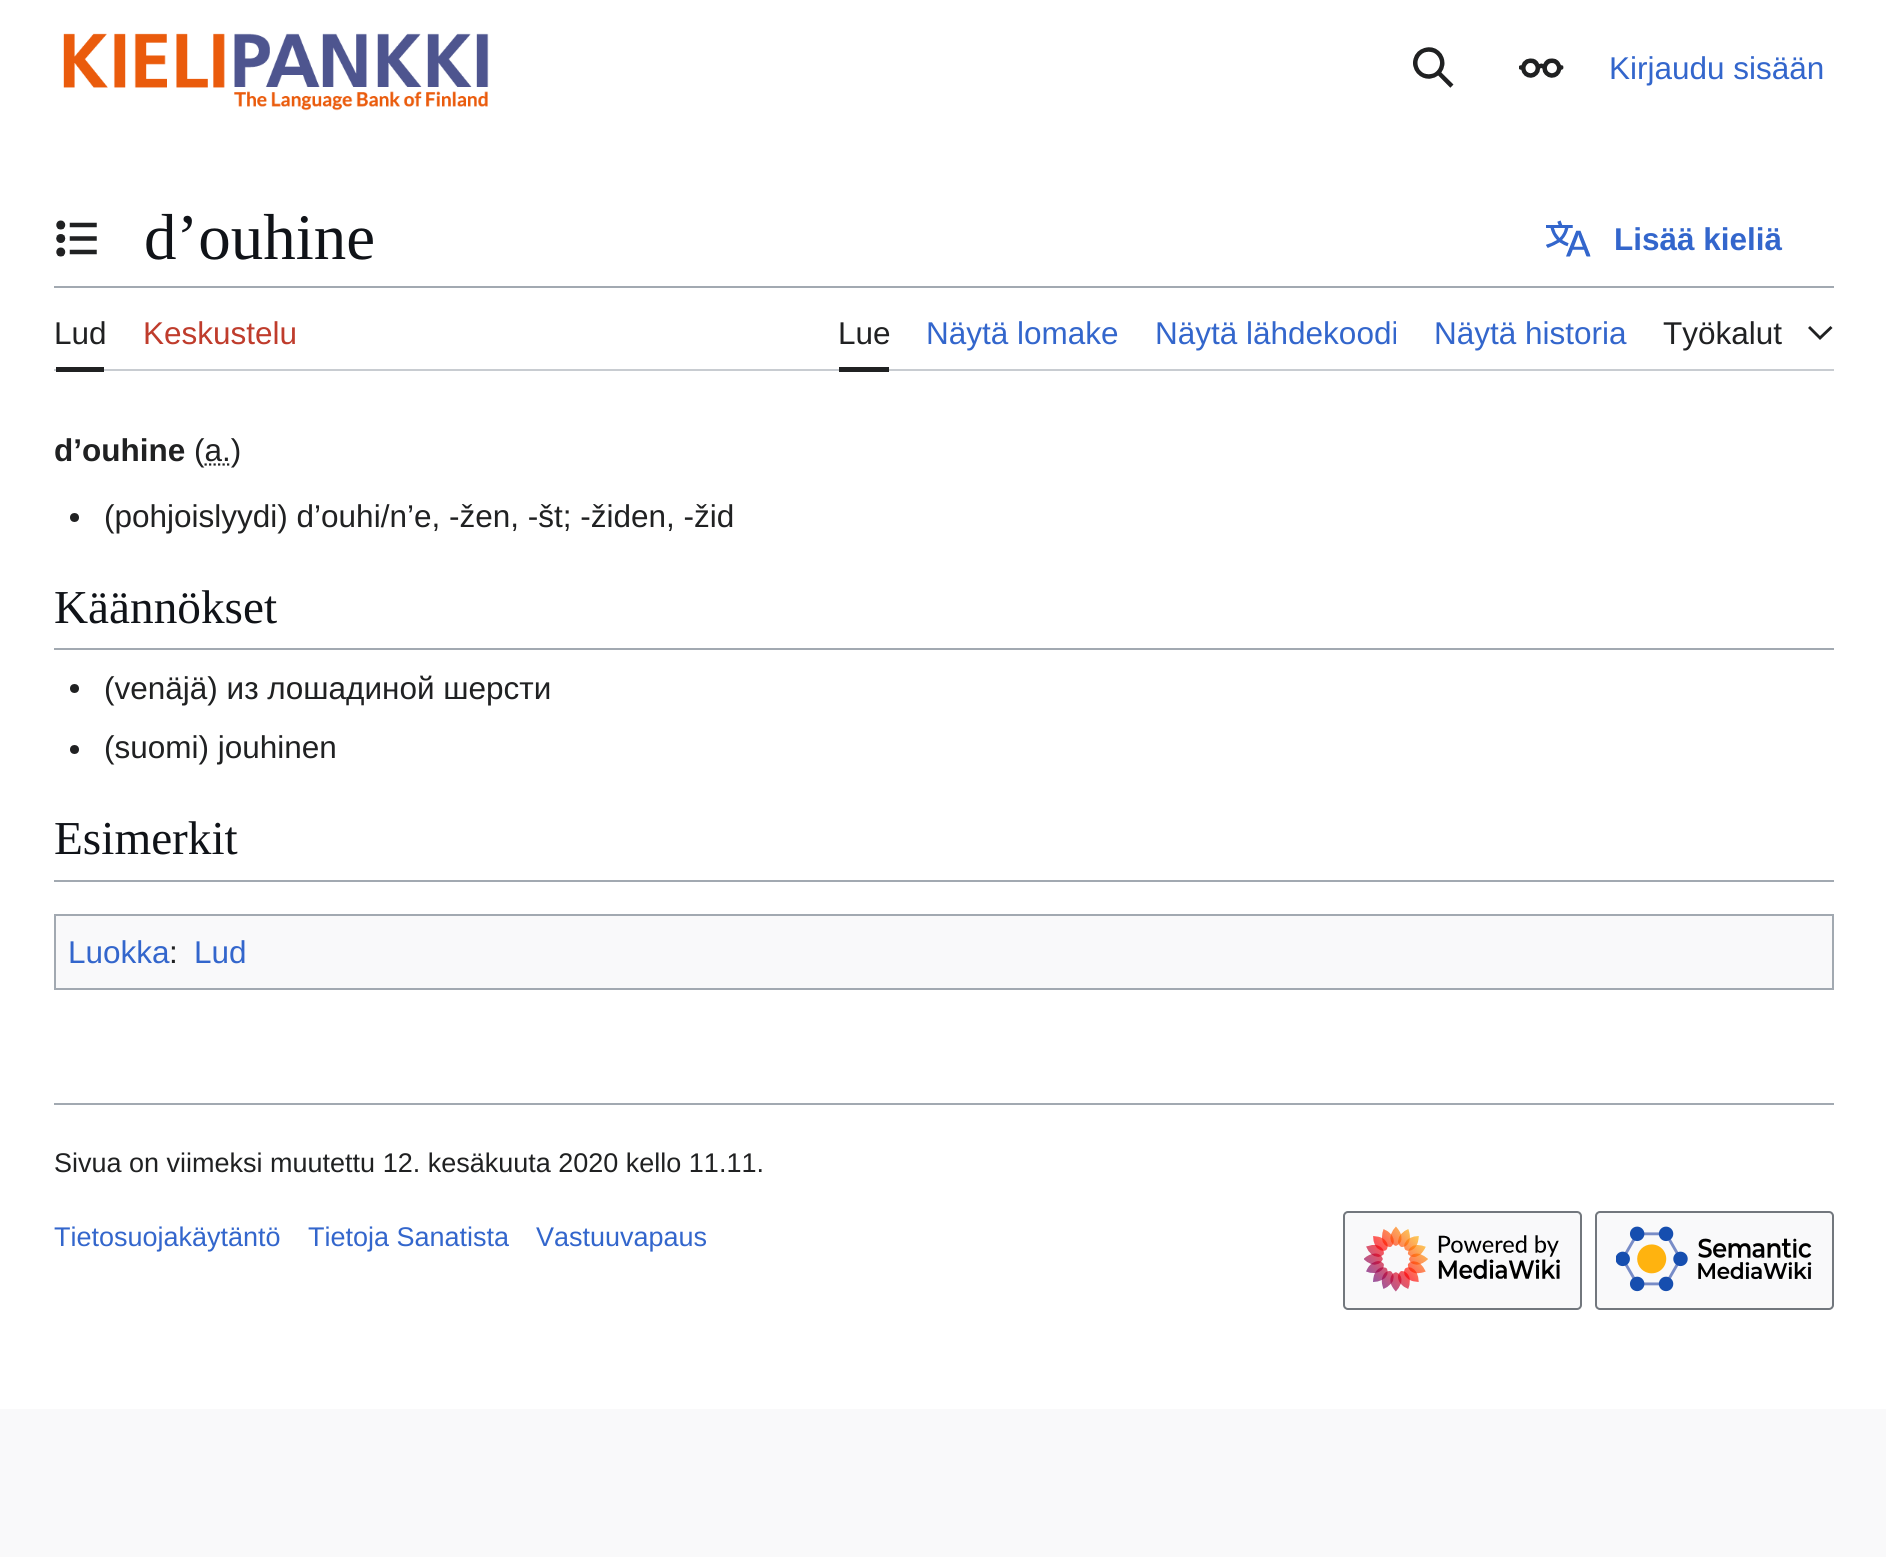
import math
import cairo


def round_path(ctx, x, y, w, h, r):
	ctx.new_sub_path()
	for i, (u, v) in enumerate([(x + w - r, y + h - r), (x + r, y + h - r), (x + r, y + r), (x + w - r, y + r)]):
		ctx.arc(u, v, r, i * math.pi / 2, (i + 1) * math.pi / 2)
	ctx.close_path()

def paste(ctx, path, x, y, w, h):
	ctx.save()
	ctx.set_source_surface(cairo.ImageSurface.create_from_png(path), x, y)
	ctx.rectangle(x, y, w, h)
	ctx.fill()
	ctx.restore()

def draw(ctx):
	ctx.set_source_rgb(0.973, 0.976, 0.98)
	ctx.paint()
	ctx.set_source_rgb(1, 1, 1)
	ctx.rectangle(0, 0, 1886, 1409)
	ctx.fill()
	paste(ctx, 'media/1.png', 63, 33, 426, 78)
	paste(ctx, 'media/2.png', 1413, 47, 41, 41)
	paste(ctx, 'media/3.png', 1519, 58, 45, 20)
	ctx.select_font_face('Liberation Sans')
	ctx.set_font_size(31.5)
	ctx.set_source_rgb(0.2, 0.4, 0.8)
	ctx.move_to(1609, 79)
	ctx.show_text('Kirjaudu sisään')
	paste(ctx, 'media/4.png', 56, 220, 41, 37)
	ctx.select_font_face('Liberation Serif')
	ctx.set_font_size(65)
	ctx.set_source_rgb(0.063, 0.078, 0.094)
	ctx.move_to(144, 259)
	ctx.show_text('d’ouhine')
	paste(ctx, 'media/5.png', 1546, 220, 45, 37)
	ctx.select_font_face('Liberation Sans', cairo.FONT_SLANT_NORMAL, cairo.FONT_WEIGHT_BOLD)
	ctx.set_font_size(31.5)
	ctx.set_source_rgb(0.2, 0.4, 0.8)
	ctx.move_to(1614, 250)
	ctx.show_text('Lisää kieliä')
	ctx.set_source_rgb(0.635, 0.663, 0.694)
	ctx.rectangle(54, 286, 1780, 2)
	ctx.fill()
	ctx.set_source_rgb(0.784, 0.8, 0.82)
	ctx.new_path()
	ctx.move_to(54, 369)
	ctx.line_to(54, 371)
	ctx.line_to(1834, 371)
	ctx.line_to(1834, 290)
	ctx.line_to(1834, 369)
	ctx.close_path()
	ctx.fill()
	ctx.set_source_rgb(0.125, 0.129, 0.133)
	ctx.rectangle(56, 367, 48, 5)
	ctx.fill()
	ctx.select_font_face('Liberation Sans')
	ctx.move_to(54, 344)
	ctx.show_text('Lud')
	ctx.set_source_rgb(0.749, 0.235, 0.173)
	ctx.move_to(143, 344)
	ctx.show_text('Keskustelu')
	ctx.set_source_rgb(0.125, 0.129, 0.133)
	ctx.rectangle(839, 367, 50, 5)
	ctx.fill()
	ctx.move_to(838, 344)
	ctx.show_text('Lue')
	ctx.set_source_rgb(0.2, 0.4, 0.8)
	for x, y, s in [
		(926, 344, 'Näytä lomake'),
		(1155, 344, 'Näytä lähdekoodi'),
		(1434, 344, 'Näytä historia'),
	]:
		ctx.move_to(x, y)
		ctx.show_text(s)
	ctx.set_source_rgb(0.125, 0.129, 0.133)
	ctx.move_to(1663, 344)
	ctx.show_text('Työkalut')
	ctx.new_path()
	ctx.move_to(1830.5, 326)
	ctx.line_to(1820, 336)
	ctx.line_to(1810, 326)
	ctx.line_to(1808, 328)
	ctx.line_to(1820, 340)
	ctx.line_to(1832.5, 328)
	ctx.close_path()
	ctx.fill()
	ctx.select_font_face('Liberation Sans', cairo.FONT_SLANT_NORMAL, cairo.FONT_WEIGHT_BOLD)
	ctx.move_to(54, 461)
	ctx.show_text('d’ouhine')
	ctx.select_font_face('Liberation Sans')
	ctx.move_to(194, 461)
	ctx.show_text('(a.)')
	ctx.new_path()
	ctx.move_to(204.5, 464.5)
	ctx.line_to(231, 464.5)
	ctx.set_line_width(2.2)
	ctx.set_dash([2.25, 2.25])
	ctx.stroke()
	ctx.arc(74.5, 517.5, 4.5, 0, 2 * math.pi)
	ctx.fill()
	ctx.move_to(104, 527)
	ctx.show_text('(pohjoislyydi) d’ouhi/n’e, -žen, -št; -židen, -žid')
	ctx.set_source_rgb(0.635, 0.663, 0.694)
	ctx.rectangle(54, 648, 1780, 2)
	ctx.fill()
	ctx.select_font_face('Liberation Serif')
	ctx.set_font_size(47.25)
	ctx.set_source_rgb(0.063, 0.078, 0.094)
	ctx.move_to(54, 623)
	ctx.show_text('Käännökset')
	ctx.set_source_rgb(0.125, 0.129, 0.133)
	ctx.new_path()
	ctx.arc(74.5, 688.5, 4.5, 0, 2 * math.pi)
	ctx.fill()
	ctx.select_font_face('Liberation Sans')
	ctx.set_font_size(31.5)
	ctx.move_to(104, 699)
	ctx.show_text('(venäjä) из лошадиной шерсти')
	ctx.new_path()
	ctx.arc(74.5, 749.5, 4.5, 0, 2 * math.pi)
	ctx.fill()
	ctx.move_to(104, 758)
	ctx.show_text('(suomi) jouhinen')
	ctx.set_source_rgb(0.635, 0.663, 0.694)
	ctx.rectangle(54, 880, 1780, 2)
	ctx.fill()
	ctx.select_font_face('Liberation Serif')
	ctx.set_font_size(47.25)
	ctx.set_source_rgb(0.063, 0.078, 0.094)
	ctx.move_to(54, 854)
	ctx.show_text('Esimerkit')
	ctx.set_source_rgb(0.973, 0.976, 0.98)
	ctx.rectangle(55, 915, 1778, 74)
	ctx.fill_preserve()
	ctx.set_source_rgb(0.635, 0.663, 0.694)
	ctx.set_line_width(2)
	ctx.set_dash([])
	ctx.stroke()
	ctx.select_font_face('Liberation Sans')
	ctx.set_font_size(31.5)
	ctx.set_source_rgb(0.2, 0.4, 0.8)
	ctx.move_to(68, 963)
	ctx.show_text('Luokka')
	ctx.set_source_rgb(0.125, 0.129, 0.133)
	ctx.move_to(169, 963)
	ctx.show_text(':')
	ctx.set_source_rgb(0.2, 0.4, 0.8)
	ctx.move_to(194, 963)
	ctx.show_text('Lud')
	ctx.set_source_rgb(0.635, 0.663, 0.694)
	ctx.rectangle(54, 1103, 1780, 2)
	ctx.fill()
	ctx.set_font_size(27)
	ctx.set_source_rgb(0.125, 0.129, 0.133)
	ctx.move_to(54, 1172)
	ctx.show_text('Sivua on viimeksi muutettu 12. kesäkuuta 2020 kello 11.11.')
	ctx.set_source_rgb(0.2, 0.4, 0.8)
	for x, y, s in [
		(54, 1246, 'Tietosuojakäytäntö'),
		(308, 1246, 'Tietoja Sanatista'),
		(536, 1246, 'Vastuuvapaus'),
	]:
		ctx.move_to(x, y)
		ctx.show_text(s)
	ctx.set_source_rgb(0.973, 0.976, 0.98)
	round_path(ctx, 1344, 1212, 237, 97, 4)
	ctx.fill_preserve()
	ctx.set_source_rgb(0.447, 0.467, 0.49)
	ctx.stroke()
	paste(ctx, 'media/6.png', 1364, 1226, 196, 66)
	ctx.set_source_rgb(0.973, 0.976, 0.98)
	round_path(ctx, 1596, 1212, 237, 97, 4)
	ctx.fill_preserve()
	ctx.set_source_rgb(0.447, 0.467, 0.49)
	ctx.stroke()
	paste(ctx, 'media/7.png', 1616, 1226, 196, 66)


surface = cairo.ImageSurface(cairo.FORMAT_RGB24, 1886, 1557)
ctx = cairo.Context(surface)
options = cairo.FontOptions()
options.set_hint_metrics(cairo.HINT_METRICS_OFF)
options.set_hint_style(cairo.HINT_STYLE_NONE)
ctx.set_font_options(options)
ctx.set_miter_limit(4)
draw(ctx)
surface.write_to_png('image.png')
